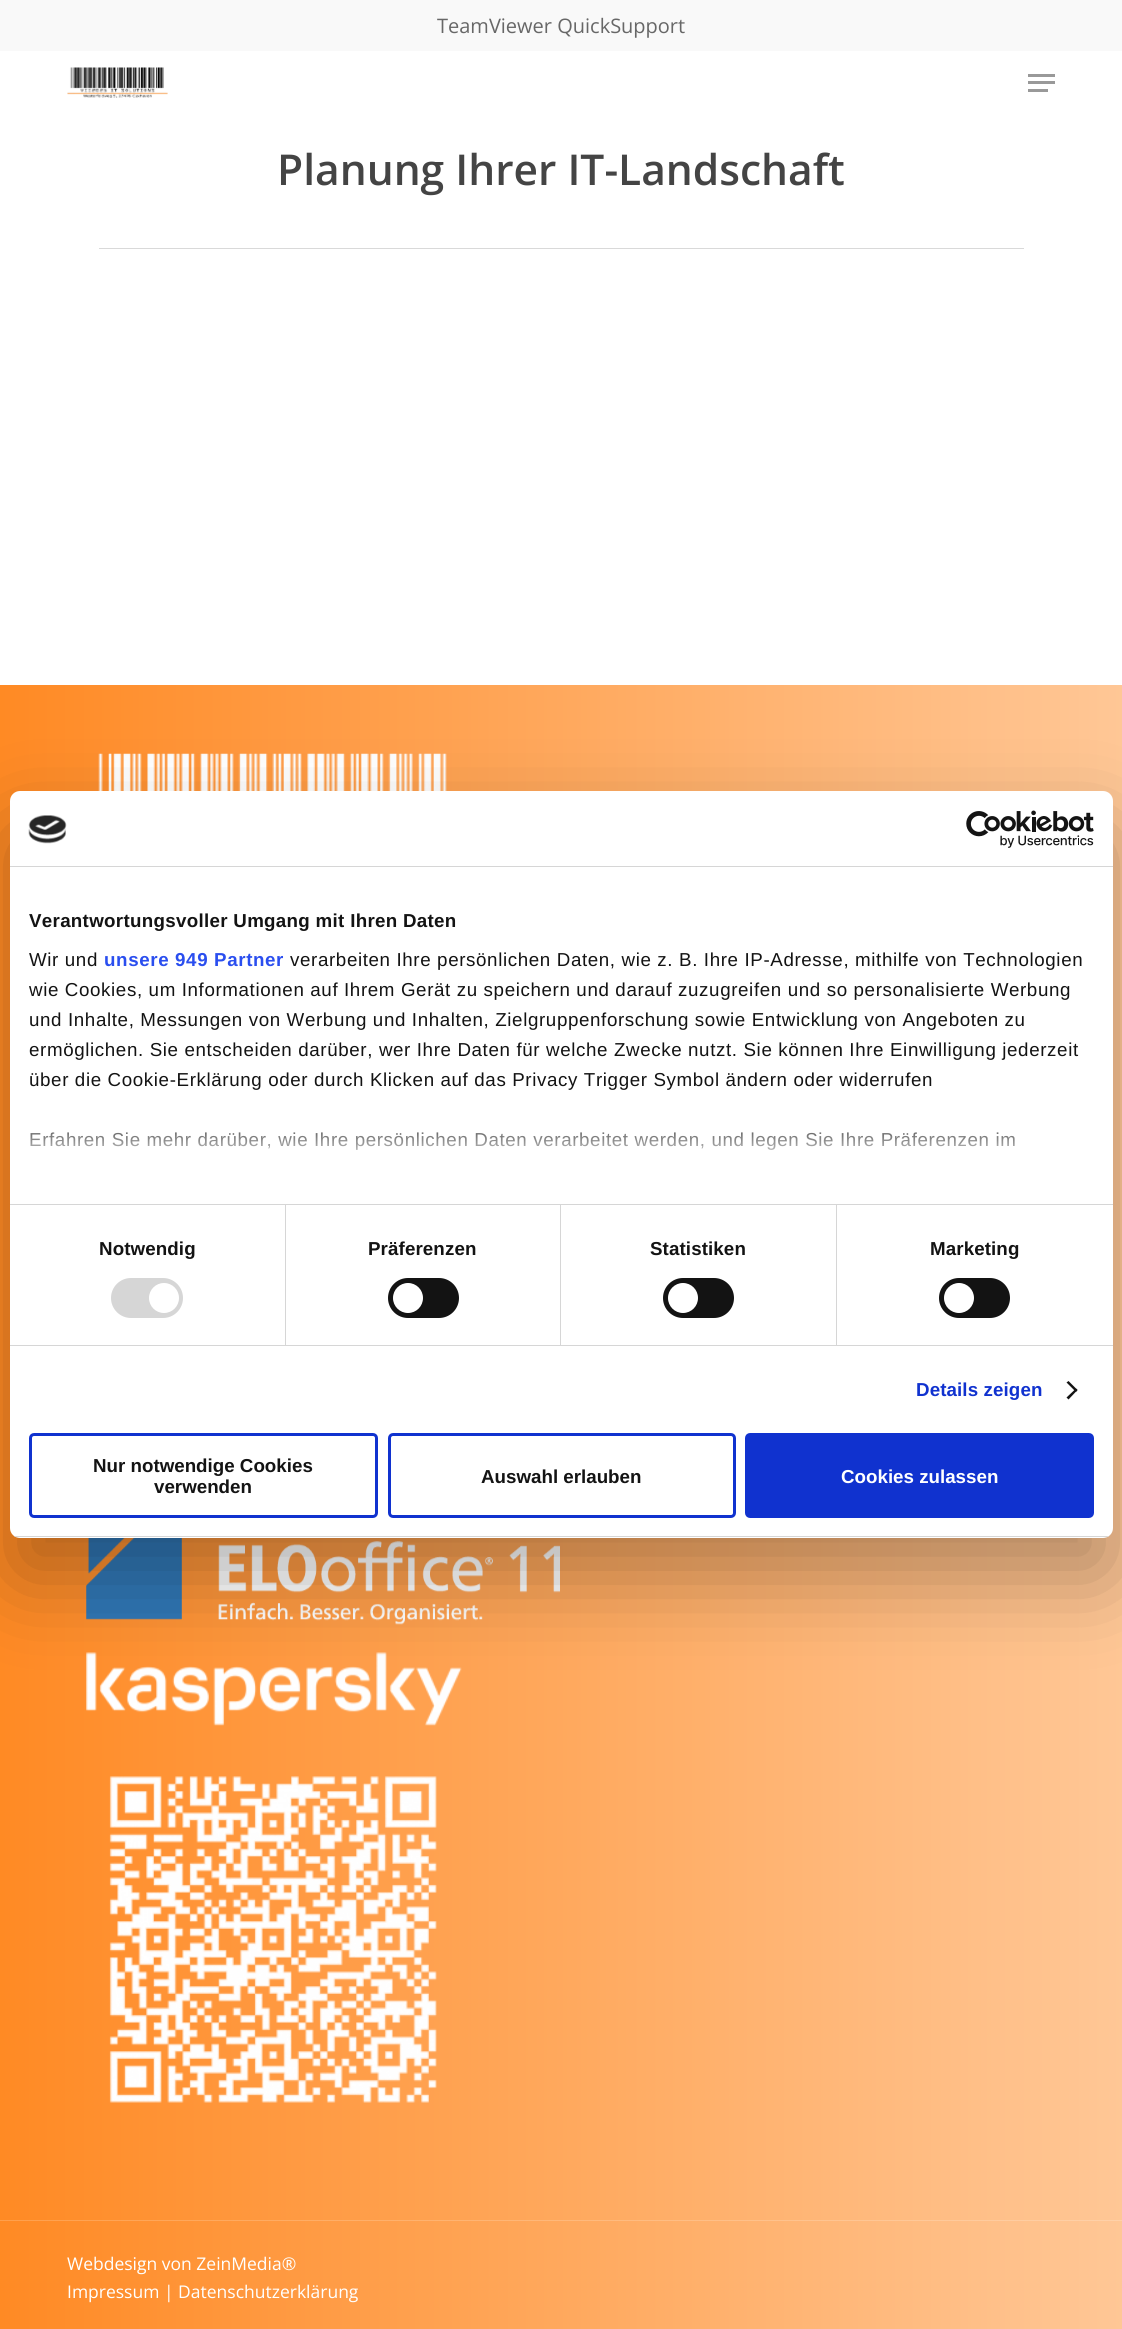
import math
import cairo


def write_spaced(ctx, x, y, s, letter, word):
	ctx.move_to(x, y)
	for ch in s:
		ctx.show_text(ch)
		ctx.rel_move_to(letter + word * (ch == ' '), 0)

def round_path(ctx, x, y, w, h, r):
	ctx.new_sub_path()
	for i, (u, v) in enumerate([(x + w - r, y + h - r), (x + r, y + h - r), (x + r, y + r), (x + w - r, y + r)]):
		ctx.arc(u, v, r, i * math.pi / 2, (i + 1) * math.pi / 2)
	ctx.close_path()

def blur_box(ctx, x, y, w, h, r, blur, alpha):
	ctx.push_group_with_content(cairo.CONTENT_ALPHA)
	ctx.set_operator(cairo.OPERATOR_SOURCE)
	for i in range(15, -16, -2):
		e = blur * i / 6
		if min(w, h) + 2 * e > 0:
			ctx.set_source_rgba(0, 0, 0, alpha * math.erfc((i - 1) / 8.5) / 2)
			round_path(ctx, x - e, y - e, w + 2 * e, h + 2 * e, max(0, min(r + e + blur * .6, min(w, h) / 2 + e)))
			ctx.fill()
	ctx.mask(ctx.pop_group())

def paste(ctx, path, x, y, w, h):
	ctx.save()
	ctx.set_source_surface(cairo.ImageSurface.create_from_png(path), x, y)
	ctx.rectangle(x, y, w, h)
	ctx.fill()
	ctx.restore()

def draw(ctx):
	ctx.set_source_rgb(1, 1, 1)
	ctx.paint()
	ctx.set_source_rgb(0.973, 0.973, 0.973)
	ctx.rectangle(0, 0, 1122, 51)
	ctx.fill()
	ctx.select_font_face('Open Sans')
	ctx.set_font_size(20)
	ctx.set_source_rgb(0.404, 0.404, 0.404)
	ctx.move_to(437, 33)
	ctx.show_text('TeamViewer QuickSupport')
	paste(ctx, 'media/1.png', 67, 67, 101, 31)
	ctx.set_source_rgb(0.6, 0.6, 0.6)
	ctx.rectangle(1028, 74, 27, 3)
	ctx.rectangle(1028, 89, 20, 3)
	ctx.rectangle(1028, 81, 27, 3)
	ctx.fill()
	ctx.set_source_rgb(0.851, 0.851, 0.851)
	ctx.rectangle(99, 248, 925, 1)
	ctx.fill()
	ctx.select_font_face('Open Sans SemiBold')
	ctx.set_font_size(42.5)
	ctx.set_source_rgb(0.267, 0.267, 0.267)
	ctx.move_to(277, 185)
	ctx.show_text('Planung Ihrer IT-Landschaft')
	gradient = cairo.LinearGradient(0, 1508, 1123, 1508)
	gradient.add_color_stop_rgba(0, 1, 0.541, 0.141, 1)
	gradient.add_color_stop_rgba(1, 1, 0.78, 0.588, 1)
	ctx.set_source(gradient)
	ctx.rectangle(0, 685, 1122, 1644)
	ctx.fill()
	gradient = cairo.LinearGradient(0, 1508, 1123, 1508)
	gradient.add_color_stop_rgba(0, 1, 0.624, 0.294, 1)
	gradient.add_color_stop_rgba(1, 1, 0.82, 0.663, 1)
	ctx.set_source(gradient)
	ctx.rectangle(0, 2220, 1122, 1)
	ctx.fill()
	paste(ctx, 'media/2.png', 98, 753, 349, 38)
	paste(ctx, 'media/3.png', 86, 1538, 474, 87)
	paste(ctx, 'media/4.png', 86, 1652, 376, 74)
	paste(ctx, 'media/5.png', 109, 1776, 328, 327)
	ctx.select_font_face('Open Sans')
	ctx.set_font_size(17.5)
	ctx.set_source_rgb(1, 1, 1)
	ctx.move_to(67, 2270)
	ctx.show_text('Webdesign von ZeinMedia®')
	ctx.move_to(67, 2298)
	ctx.show_text('Impressum | Datenschutzerklärung')
	ctx.set_source_rgb(0, 0, 0)
	blur_box(ctx, 10, 831, 1103, 747, 10, 42.5, 0.3)
	ctx.set_source_rgb(1, 1, 1)
	round_path(ctx, 10, 791, 1103, 747, 10)
	ctx.fill()
	ctx.set_source_rgb(0.839, 0.839, 0.839)
	ctx.rectangle(10, 866, 1103, 1)
	ctx.fill()
	paste(ctx, 'media/6.png', 28, 815, 39, 29)
	paste(ctx, 'media/7.png', 966, 810, 128, 38)
	ctx.rectangle(10, 1204, 1103, 1)
	ctx.fill()
	ctx.select_font_face('Liberation Sans', cairo.FONT_SLANT_NORMAL, cairo.FONT_WEIGHT_BOLD)
	ctx.set_font_size(18.75)
	ctx.set_source_rgb(0.078, 0.078, 0.078)
	write_spaced(ctx, 29, 927, 'Verantwortungsvoller Umgang mit Ihren Daten', 0.3, 0)
	ctx.select_font_face('Liberation Sans')
	write_spaced(ctx, 29, 966, 'Wir und', 0.62, 0)
	ctx.select_font_face('Liberation Sans', cairo.FONT_SLANT_NORMAL, cairo.FONT_WEIGHT_BOLD)
	ctx.set_source_rgb(0.165, 0.306, 0.937)
	write_spaced(ctx, 104, 966, 'unsere 949 Partner', 0.62, 0)
	ctx.select_font_face('Liberation Sans')
	ctx.set_source_rgb(0.078, 0.078, 0.078)
	for x, y, s in [
		(290, 966, 'verarbeiten Ihre persönlichen Daten, wie z. B. Ihre IP-Adresse, mithilfe von Technologien'),
		(29, 996, 'wie Cookies, um Informationen auf Ihrem Gerät zu speichern und darauf zuzugreifen und so personalisierte Werbung'),
		(29, 1026, 'und Inhalte, Messungen von Werbung und Inhalten, Zielgruppenforschung sowie Entwicklung von Angeboten zu'),
		(29, 1056, 'ermöglichen. Sie entscheiden darüber, wer Ihre Daten für welche Zwecke nutzt. Sie können Ihre Einwilligung jederzeit'),
		(29, 1086, 'über die Cookie-Erklärung oder durch Klicken auf das Privacy Trigger Symbol ändern oder widerrufen'),
		(29, 1146, 'Erfahren Sie mehr darüber, wie Ihre persönlichen Daten verarbeitet werden, und legen Sie Ihre Präferenzen im'),
	]:
		write_spaced(ctx, x, y, s, 0.62, 0)
	gradient = cairo.LinearGradient(553, 1204, 553, 1110)
	gradient.add_color_stop_rgba(0, 1, 1, 1, 1)
	gradient.add_color_stop_rgba(0.5, 1, 1, 1, 0.8)
	gradient.add_color_stop_rgba(1, 1, 1, 1, 0)
	ctx.set_source(gradient)
	ctx.rectangle(30, 1132, 985, 18)
	ctx.fill()
	ctx.set_source_rgb(0.839, 0.839, 0.839)
	ctx.rectangle(10, 1345, 1103, 1)
	ctx.fill()
	ctx.rectangle(285, 1205, 1, 140)
	ctx.fill()
	ctx.select_font_face('Liberation Sans', cairo.FONT_SLANT_NORMAL, cairo.FONT_WEIGHT_BOLD)
	ctx.set_source_rgb(0.078, 0.078, 0.078)
	write_spaced(ctx, 99, 1255, 'Notwendig', 0.1, 0)
	ctx.set_source_rgb(0.839, 0.839, 0.839)
	round_path(ctx, 111, 1278, 72, 40, 20)
	ctx.fill()
	ctx.set_source_rgb(1, 1, 1)
	ctx.arc(164, 1298, 15, 0, 2 * math.pi)
	ctx.fill()
	ctx.set_source_rgb(0.839, 0.839, 0.839)
	ctx.rectangle(560, 1205, 1, 140)
	ctx.fill()
	ctx.set_source_rgb(0.078, 0.078, 0.078)
	write_spaced(ctx, 368, 1255, 'Präferenzen', 0.1, 0)
	round_path(ctx, 388, 1278, 71, 40, 20)
	ctx.fill()
	ctx.set_source_rgb(1, 1, 1)
	ctx.arc(408, 1298, 15, 0, 2 * math.pi)
	ctx.fill()
	ctx.set_source_rgb(0.839, 0.839, 0.839)
	ctx.rectangle(836, 1205, 1, 140)
	ctx.fill()
	ctx.set_source_rgb(0.078, 0.078, 0.078)
	write_spaced(ctx, 650, 1255, 'Statistiken', 0.1, 0)
	round_path(ctx, 663, 1278, 71, 40, 20)
	ctx.fill()
	ctx.set_source_rgb(1, 1, 1)
	ctx.arc(683, 1298, 15, 0, 2 * math.pi)
	ctx.fill()
	ctx.set_source_rgb(0.078, 0.078, 0.078)
	write_spaced(ctx, 930, 1255, 'Marketing', 0.1, 0)
	round_path(ctx, 939, 1278, 71, 40, 20)
	ctx.fill()
	ctx.set_source_rgb(1, 1, 1)
	ctx.arc(959, 1298, 15, 0, 2 * math.pi)
	ctx.fill()
	ctx.set_source_rgb(0.063, 0.196, 0.812)
	write_spaced(ctx, 916, 1396, 'Details zeigen', 0.1, 0)
	ctx.set_source_rgb(0.078, 0.078, 0.078)
	ctx.new_path()
	ctx.move_to(1068.5, 1381)
	ctx.line_to(1077.5, 1390)
	ctx.line_to(1076, 1392)
	ctx.line_to(1066.5, 1382.5)
	ctx.close_path()
	ctx.fill()
	ctx.new_path()
	ctx.move_to(1076, 1388.5)
	ctx.line_to(1077.5, 1390)
	ctx.line_to(1068.5, 1399.5)
	ctx.line_to(1066.5, 1397.5)
	ctx.close_path()
	ctx.fill()
	ctx.save()
	round_path(ctx, 10, 791, 1103, 747, 10)
	ctx.clip()
	ctx.set_source_rgb(0.839, 0.839, 0.839)
	ctx.rectangle(10, 1536, 1103, 1)
	ctx.fill()
	ctx.restore()
	round_path(ctx, 30.5, 1434.5, 346, 82, 3.5)
	ctx.set_source_rgb(0.063, 0.196, 0.812)
	ctx.set_line_width(3)
	ctx.stroke()
	ctx.set_source_rgb(0.078, 0.078, 0.078)
	ctx.move_to(93, 1472)
	ctx.show_text('Nur notwendige Cookies')
	ctx.move_to(154, 1493)
	ctx.show_text('verwenden')
	round_path(ctx, 389.5, 1434.5, 345, 82, 3.5)
	ctx.set_source_rgb(0.063, 0.196, 0.812)
	ctx.stroke()
	ctx.set_source_rgb(0.078, 0.078, 0.078)
	ctx.move_to(481, 1483)
	ctx.show_text('Auswahl erlauben')
	ctx.set_source_rgb(0.063, 0.196, 0.812)
	round_path(ctx, 746.5, 1434.5, 346, 82, 3.5)
	ctx.fill_preserve()
	ctx.stroke()
	ctx.set_source_rgb(1, 1, 1)
	ctx.move_to(841, 1483)
	ctx.show_text('Cookies zulassen')


surface = cairo.ImageSurface(cairo.FORMAT_RGB24, 1122, 2329)
ctx = cairo.Context(surface)
options = cairo.FontOptions()
options.set_hint_metrics(cairo.HINT_METRICS_OFF)
options.set_hint_style(cairo.HINT_STYLE_NONE)
ctx.set_font_options(options)
ctx.set_miter_limit(4)
draw(ctx)
surface.write_to_png('image.png')
